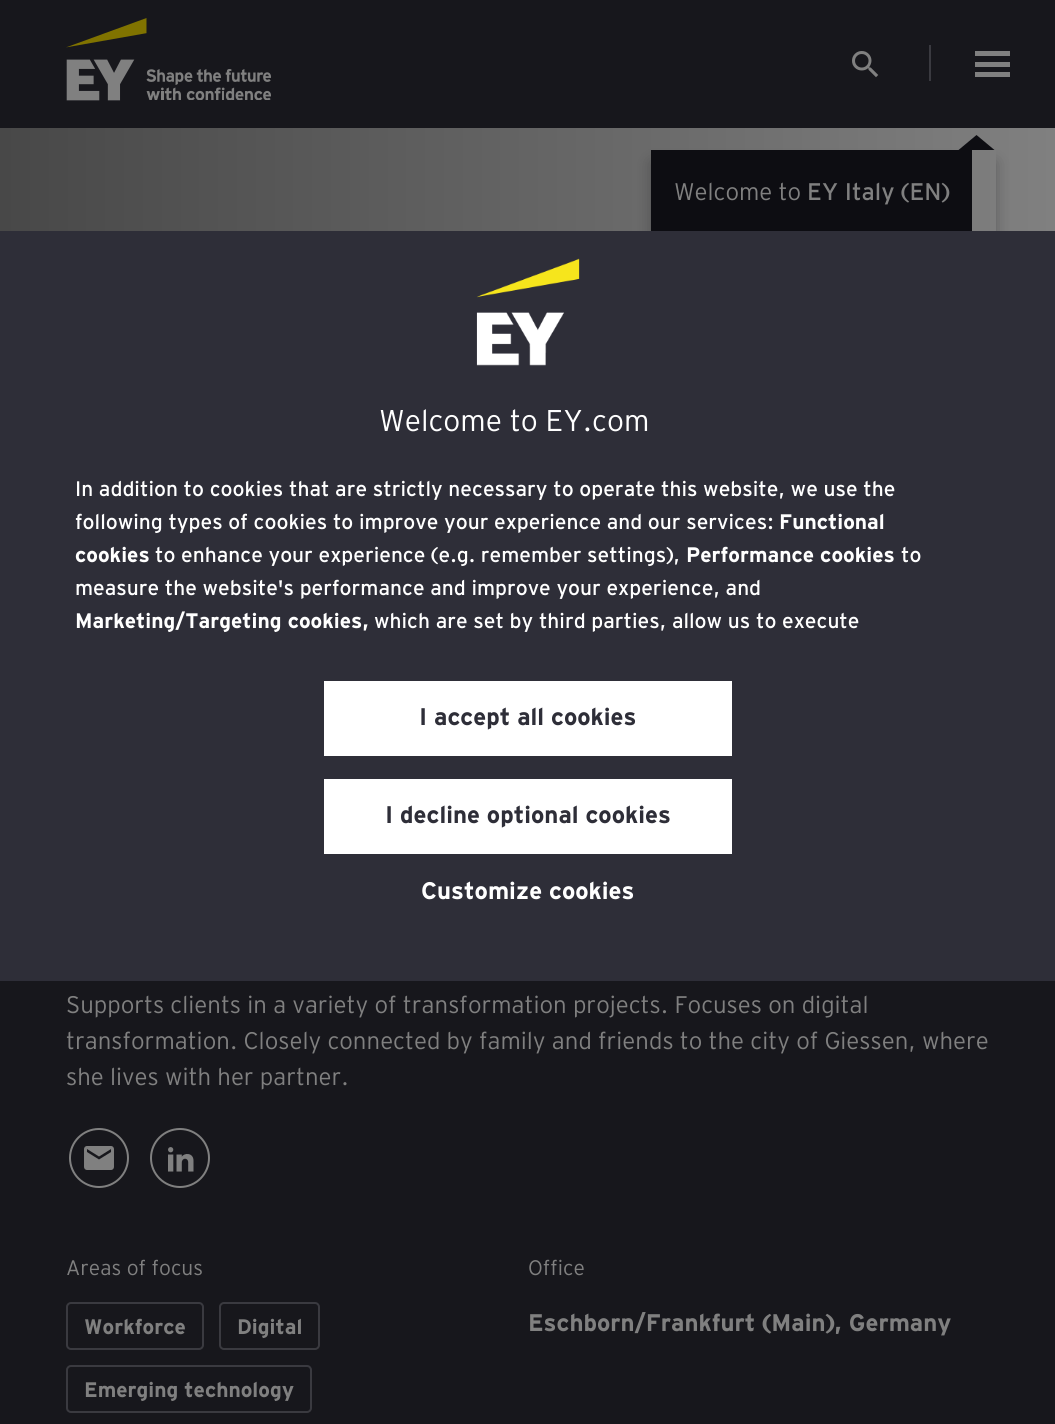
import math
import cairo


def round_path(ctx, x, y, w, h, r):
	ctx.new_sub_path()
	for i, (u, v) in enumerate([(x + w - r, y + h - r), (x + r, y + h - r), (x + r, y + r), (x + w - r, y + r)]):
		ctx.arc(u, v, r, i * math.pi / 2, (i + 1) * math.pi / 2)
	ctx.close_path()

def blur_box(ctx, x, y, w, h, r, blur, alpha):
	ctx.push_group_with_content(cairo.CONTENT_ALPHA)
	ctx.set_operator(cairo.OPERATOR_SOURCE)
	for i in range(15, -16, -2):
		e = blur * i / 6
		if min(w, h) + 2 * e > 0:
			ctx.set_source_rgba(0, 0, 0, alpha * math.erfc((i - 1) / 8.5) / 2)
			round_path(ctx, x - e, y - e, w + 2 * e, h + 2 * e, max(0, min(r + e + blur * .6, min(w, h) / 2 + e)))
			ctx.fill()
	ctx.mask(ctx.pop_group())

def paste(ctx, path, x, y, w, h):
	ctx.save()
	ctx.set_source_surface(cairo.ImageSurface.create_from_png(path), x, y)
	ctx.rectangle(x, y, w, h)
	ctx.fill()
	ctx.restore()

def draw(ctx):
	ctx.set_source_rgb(0.09, 0.09, 0.11)
	ctx.paint()
	gradient = cairo.LinearGradient(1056, 479, 0, 479)
	gradient.add_color_stop_rgba(0, 0.502, 0.502, 0.502, 1)
	gradient.add_color_stop_rgba(1, 0.282, 0.282, 0.282, 1)
	ctx.set_source(gradient)
	ctx.rectangle(0, 128, 1055, 103)
	ctx.fill()
	ctx.save()
	ctx.set_fill_rule(cairo.FILL_RULE_EVEN_ODD)
	ctx.new_path()
	ctx.move_to(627, 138)
	ctx.line_to(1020, 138)
	ctx.line_to(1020, 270)
	ctx.line_to(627, 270)
	ctx.close_path()
	ctx.move_to(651, 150)
	ctx.line_to(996, 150)
	ctx.line_to(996, 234)
	ctx.line_to(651, 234)
	ctx.close_path()
	ctx.clip()
	ctx.set_source_rgb(0.09, 0.09, 0.11)
	blur_box(ctx, 651, 162, 345, 84, 0, 7.5, 0.3)
	ctx.restore()
	ctx.set_source_rgb(0.051, 0.051, 0.071)
	ctx.new_path()
	ctx.move_to(994.5, 150)
	ctx.line_to(958.5, 150)
	ctx.line_to(976.5, 135)
	ctx.close_path()
	ctx.fill()
	ctx.rectangle(651, 150, 321, 81)
	ctx.fill()
	ctx.select_font_face('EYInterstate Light')
	ctx.set_font_size(24)
	ctx.set_source_rgb(0.502, 0.502, 0.502)
	ctx.move_to(674, 200)
	ctx.show_text('Welcome to')
	ctx.select_font_face('EYInterstate')
	ctx.move_to(807, 200)
	ctx.show_text('EY Italy (EN)')
	ctx.set_source_rgb(0.18, 0.18, 0.22)
	ctx.rectangle(0, 231, 1055, 750)
	ctx.fill()
	paste(ctx, 'media/1.png', 476, 258, 104, 108)
	ctx.select_font_face('EYInterstate Light')
	ctx.set_font_size(30)
	ctx.set_source_rgb(1, 1, 1)
	ctx.move_to(379, 431)
	ctx.show_text('Welcome to EY.com')
	ctx.select_font_face('EYInterstate')
	ctx.set_font_size(21)
	ctx.move_to(75, 496)
	ctx.show_text('In addition to cookies that are strictly necessary to operate this website, we use the')
	ctx.move_to(75, 529)
	ctx.show_text('following types of cookies to improve your experience and our services:')
	ctx.select_font_face('EYInterstate', cairo.FONT_SLANT_NORMAL, cairo.FONT_WEIGHT_BOLD)
	ctx.move_to(779, 529)
	ctx.show_text('Functional')
	ctx.move_to(75, 562)
	ctx.show_text('cookies')
	ctx.select_font_face('EYInterstate')
	ctx.move_to(155, 562)
	ctx.show_text('to enhance your experience (e.g. remember settings),')
	ctx.select_font_face('EYInterstate', cairo.FONT_SLANT_NORMAL, cairo.FONT_WEIGHT_BOLD)
	ctx.move_to(686, 562)
	ctx.show_text('Performance cookies')
	ctx.select_font_face('EYInterstate')
	ctx.move_to(901, 562)
	ctx.show_text('to')
	ctx.move_to(75, 595)
	ctx.show_text('measure the website\'s performance and improve your experience, and')
	ctx.select_font_face('EYInterstate', cairo.FONT_SLANT_NORMAL, cairo.FONT_WEIGHT_BOLD)
	ctx.move_to(75, 628)
	ctx.show_text('Marketing/Targeting cookies,')
	ctx.select_font_face('EYInterstate')
	ctx.move_to(374, 628)
	ctx.show_text('which are set by third parties, allow us to execute')
	ctx.rectangle(324, 681, 408, 75)
	ctx.fill()
	ctx.select_font_face('EYInterstate', cairo.FONT_SLANT_NORMAL, cairo.FONT_WEIGHT_BOLD)
	ctx.set_font_size(24)
	ctx.set_source_rgb(0.18, 0.18, 0.22)
	ctx.move_to(419, 725)
	ctx.show_text('I accept all cookies')
	ctx.set_source_rgb(1, 1, 1)
	ctx.rectangle(324, 779, 408, 75)
	ctx.fill()
	ctx.set_source_rgb(0.18, 0.18, 0.22)
	ctx.move_to(385, 823)
	ctx.show_text('I decline optional cookies')
	ctx.set_source_rgb(1, 1, 1)
	ctx.move_to(421, 899)
	ctx.show_text('Customize cookies')
	paste(ctx, 'media/2.png', 66, 18, 205, 83)
	paste(ctx, 'media/3.png', 852, 51, 27, 27)
	ctx.set_source_rgb(0.227, 0.227, 0.251)
	ctx.rectangle(929, 45, 2, 36)
	ctx.fill()
	ctx.set_source_rgb(0.502, 0.502, 0.502)
	ctx.rectangle(975, 51, 35, 5)
	ctx.rectangle(975, 62, 35, 5)
	ctx.rectangle(975, 72, 35, 5)
	ctx.fill()
	ctx.select_font_face('EYInterstate Light')
	for x, y, s in [
		(66, 1013, 'Supports clients in a variety of transformation projects. Focuses on digital'),
		(66, 1049, 'transformation. Closely connected by family and friends to the city of Giessen, where'),
		(66, 1085, 'she lives with her partner.'),
	]:
		ctx.move_to(x, y)
		ctx.show_text(s)
	ctx.new_path()
	ctx.arc(99, 1158, 29, 0, 2 * math.pi)
	ctx.stroke()
	paste(ctx, 'media/4.png', 84, 1146, 30, 24)
	ctx.arc(180, 1158, 29, 0, 2 * math.pi)
	ctx.stroke()
	paste(ctx, 'media/5.png', 168, 1147, 26, 25)
	ctx.set_font_size(21)
	ctx.move_to(66, 1275)
	ctx.show_text('Areas of focus')
	round_path(ctx, 67, 1303, 136, 46, 4)
	ctx.set_source_rgb(0.227, 0.227, 0.251)
	ctx.stroke()
	ctx.select_font_face('EYInterstate', cairo.FONT_SLANT_NORMAL, cairo.FONT_WEIGHT_BOLD)
	ctx.set_source_rgb(0.502, 0.502, 0.502)
	ctx.move_to(84, 1334)
	ctx.show_text('Workforce')
	round_path(ctx, 220, 1303, 99, 46, 4)
	ctx.set_source_rgb(0.227, 0.227, 0.251)
	ctx.stroke()
	ctx.set_source_rgb(0.502, 0.502, 0.502)
	ctx.move_to(237, 1334)
	ctx.show_text('Digital')
	round_path(ctx, 67, 1366, 244, 46, 4)
	ctx.set_source_rgb(0.227, 0.227, 0.251)
	ctx.stroke()
	ctx.set_source_rgb(0.502, 0.502, 0.502)
	ctx.move_to(84, 1397)
	ctx.show_text('Emerging technology')
	ctx.select_font_face('EYInterstate Light')
	ctx.move_to(528, 1275)
	ctx.show_text('Office')
	ctx.select_font_face('EYInterstate', cairo.FONT_SLANT_NORMAL, cairo.FONT_WEIGHT_BOLD)
	ctx.set_font_size(24)
	ctx.move_to(528, 1331)
	ctx.show_text('Eschborn/Frankfurt (Main), Germany')


surface = cairo.ImageSurface(cairo.FORMAT_RGB24, 1055, 1424)
ctx = cairo.Context(surface)
options = cairo.FontOptions()
options.set_hint_metrics(cairo.HINT_METRICS_OFF)
options.set_hint_style(cairo.HINT_STYLE_NONE)
ctx.set_font_options(options)
ctx.set_miter_limit(4)
draw(ctx)
surface.write_to_png('image.png')
